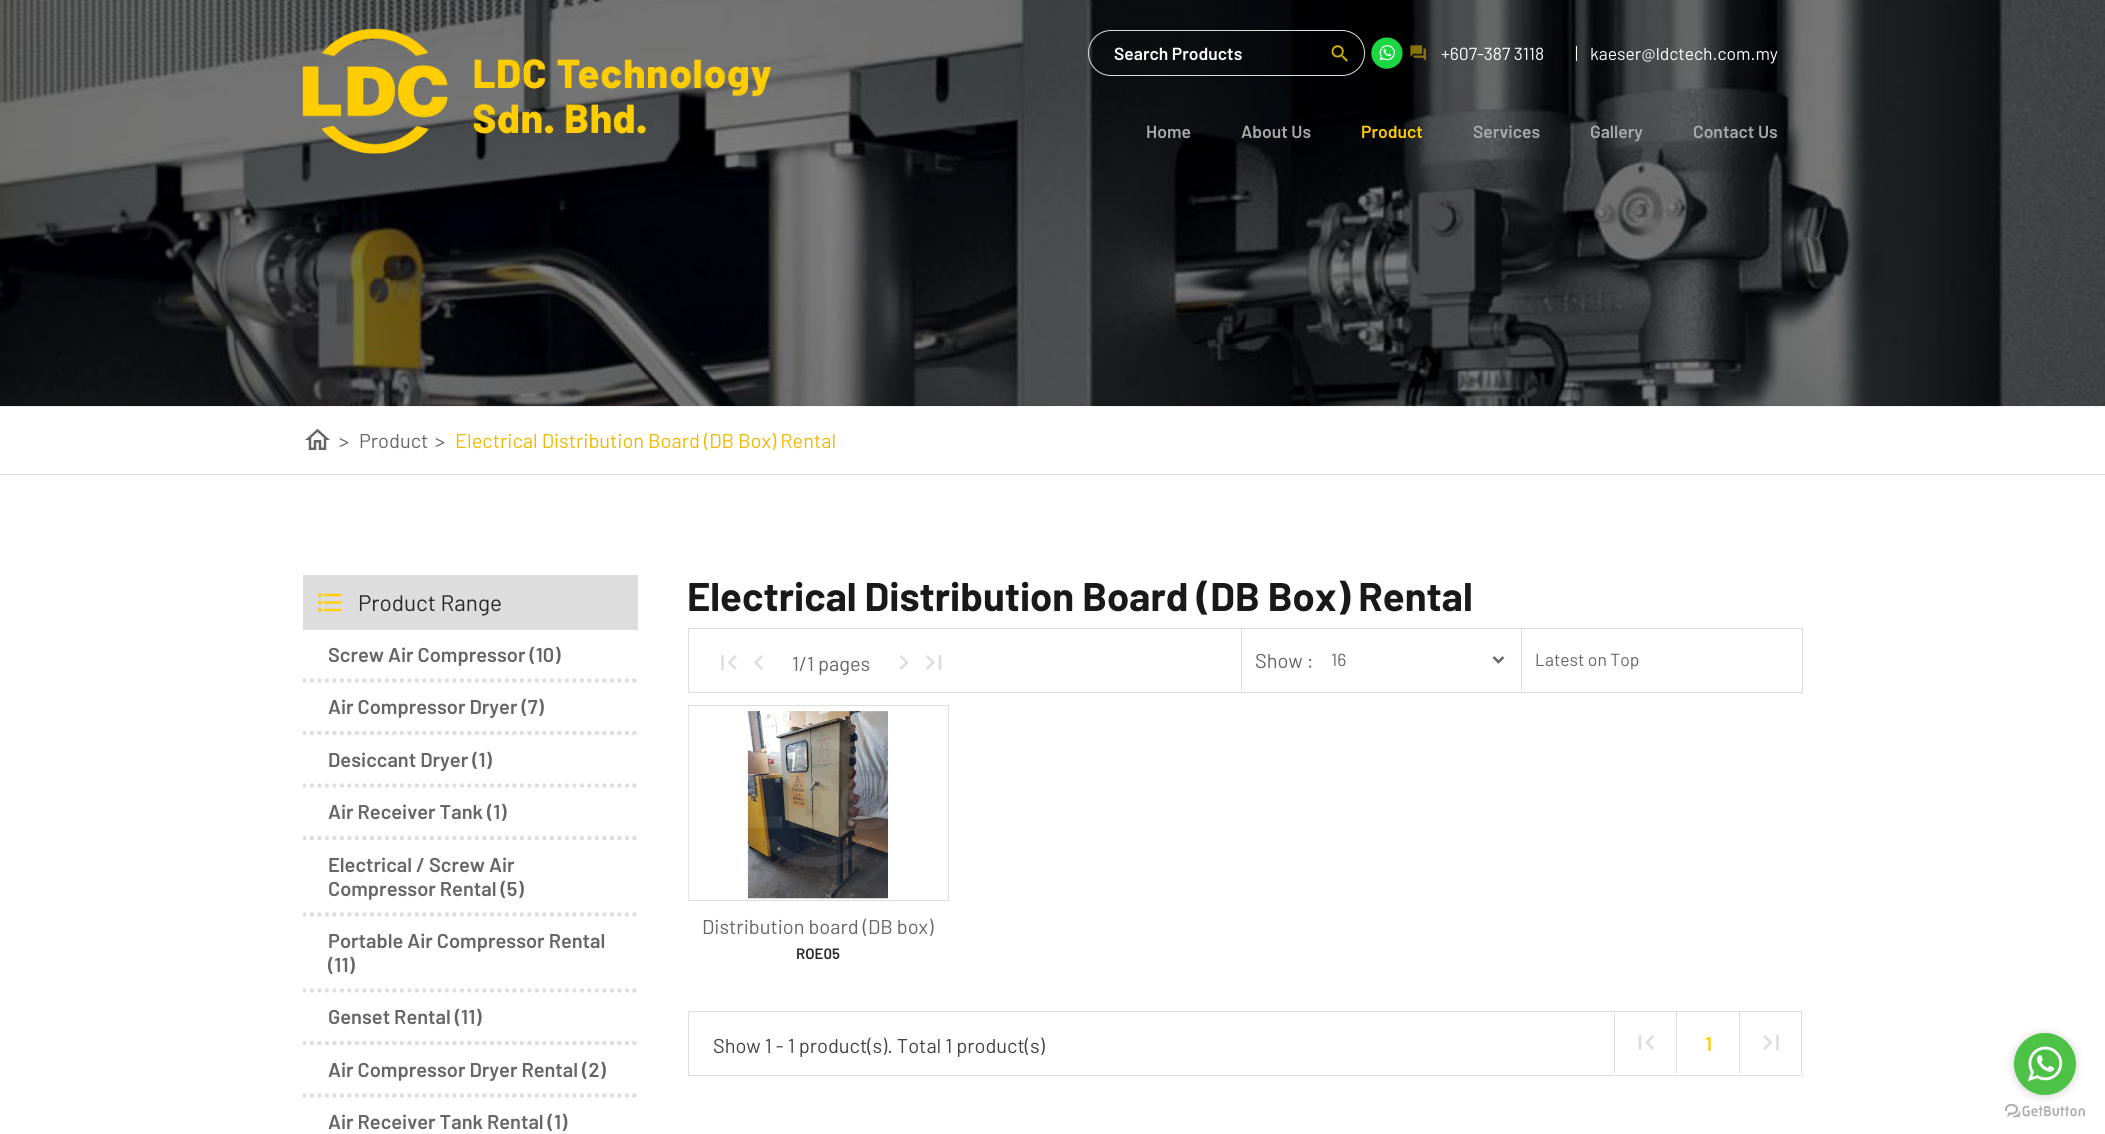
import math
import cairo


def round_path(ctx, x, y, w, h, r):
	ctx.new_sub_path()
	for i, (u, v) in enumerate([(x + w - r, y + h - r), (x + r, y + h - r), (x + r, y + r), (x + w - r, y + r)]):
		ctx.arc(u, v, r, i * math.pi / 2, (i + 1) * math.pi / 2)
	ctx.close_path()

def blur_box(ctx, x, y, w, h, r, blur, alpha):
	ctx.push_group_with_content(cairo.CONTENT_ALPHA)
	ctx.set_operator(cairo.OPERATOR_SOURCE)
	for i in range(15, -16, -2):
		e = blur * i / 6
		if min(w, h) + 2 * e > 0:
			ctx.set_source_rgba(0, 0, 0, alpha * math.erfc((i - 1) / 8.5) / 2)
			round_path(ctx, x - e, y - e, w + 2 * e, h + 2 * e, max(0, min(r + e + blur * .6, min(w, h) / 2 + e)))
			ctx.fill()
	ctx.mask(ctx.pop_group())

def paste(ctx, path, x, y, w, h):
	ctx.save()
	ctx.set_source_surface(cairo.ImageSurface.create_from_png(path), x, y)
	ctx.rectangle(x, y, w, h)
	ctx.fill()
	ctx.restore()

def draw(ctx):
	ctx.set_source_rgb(1, 1, 1)
	ctx.paint()
	paste(ctx, 'media/1.png', 0, 0, 2105, 407)
	paste(ctx, 'media/2.png', 302, 28, 470, 126)
	round_path(ctx, 1088.5, 30.5, 276, 45, 22.5)
	ctx.set_source_rgb(0.867, 0.867, 0.867)
	ctx.set_line_width(1)
	ctx.stroke()
	ctx.select_font_face('Barlow SemiBold')
	ctx.set_font_size(17.5)
	ctx.set_source_rgb(1, 1, 1)
	ctx.move_to(1114, 60)
	ctx.show_text('Search Products')
	paste(ctx, 'media/3.png', 1331, 45, 17, 17)
	paste(ctx, 'media/4.png', 1371, 37, 32, 32)
	paste(ctx, 'media/5.png', 1410, 45, 16, 16)
	ctx.select_font_face('Barlow')
	ctx.move_to(1441, 60)
	ctx.show_text('+607-387 3118')
	ctx.rectangle(1576, 46, 1, 15)
	ctx.fill()
	ctx.move_to(1590, 60)
	ctx.show_text('kaeser@ldctech.com.my')
	ctx.select_font_face('Barlow SemiBold')
	ctx.set_source_rgb(0.667, 0.667, 0.667)
	ctx.move_to(1146, 138)
	ctx.show_text('Home')
	ctx.move_to(1241, 138)
	ctx.show_text('About Us')
	ctx.set_source_rgb(1, 0.804, 0)
	ctx.move_to(1361, 138)
	ctx.show_text('Product')
	ctx.set_source_rgb(0.667, 0.667, 0.667)
	for x, y, s in [
		(1473, 138, 'Services'),
		(1590, 138, 'Gallery'),
		(1693, 138, 'Contact Us'),
	]:
		ctx.move_to(x, y)
		ctx.show_text(s)
	ctx.set_source_rgb(0.867, 0.867, 0.867)
	ctx.rectangle(0, 474, 2105, 1)
	ctx.fill()
	paste(ctx, 'media/6.png', 305, 428, 25, 22)
	ctx.select_font_face('Barlow')
	ctx.set_font_size(20)
	ctx.set_source_rgb(0.4, 0.4, 0.4)
	for x, y, s in [
		(339, 448, '>'),
		(359, 448, 'Product'),
		(435, 448, '>'),
	]:
		ctx.move_to(x, y)
		ctx.show_text(s)
	ctx.set_source_rgb(0.945, 0.718, 0.02)
	ctx.move_to(455, 448)
	ctx.show_text('Electrical Distribution Board (DB Box) Rental')
	ctx.set_source_rgb(0.867, 0.867, 0.867)
	ctx.rectangle(303, 575, 335, 55)
	ctx.fill()
	paste(ctx, 'media/7.png', 318, 593, 24, 19)
	ctx.set_font_size(22.5)
	ctx.set_source_rgb(0.161, 0.161, 0.161)
	ctx.move_to(358, 611)
	ctx.show_text('Product Range')
	ctx.save()
	ctx.rectangle(303, 630, 335, 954)
	ctx.clip()
	ctx.new_path()
	ctx.move_to(302.5, 680.5)
	ctx.line_to(637.5, 680.5)
	ctx.set_source_rgb(0.867, 0.867, 0.867)
	ctx.set_line_width(3.8)
	ctx.set_dash([3.75, 3.75])
	ctx.stroke()
	ctx.restore()
	ctx.select_font_face('Barlow SemiBold')
	ctx.set_font_size(20)
	ctx.set_source_rgb(0.4, 0.4, 0.4)
	ctx.move_to(328, 662)
	ctx.show_text('Screw Air Compressor (10)')
	ctx.save()
	ctx.rectangle(303, 630, 335, 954)
	ctx.clip()
	ctx.new_path()
	ctx.move_to(302.5, 733)
	ctx.line_to(637.5, 733)
	ctx.set_source_rgb(0.867, 0.867, 0.867)
	ctx.set_line_width(3.8)
	ctx.set_dash([3.75, 3.75])
	ctx.stroke()
	ctx.restore()
	ctx.move_to(328, 714)
	ctx.show_text('Air Compressor Dryer (7)')
	ctx.save()
	ctx.rectangle(303, 630, 335, 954)
	ctx.clip()
	ctx.new_path()
	ctx.move_to(302.5, 785.5)
	ctx.line_to(637.5, 785.5)
	ctx.set_source_rgb(0.867, 0.867, 0.867)
	ctx.set_line_width(3.8)
	ctx.set_dash([3.75, 3.75])
	ctx.stroke()
	ctx.restore()
	ctx.move_to(328, 767)
	ctx.show_text('Desiccant Dryer (1)')
	ctx.save()
	ctx.rectangle(303, 630, 335, 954)
	ctx.clip()
	ctx.new_path()
	ctx.move_to(302.5, 838)
	ctx.line_to(637.5, 838)
	ctx.set_source_rgb(0.867, 0.867, 0.867)
	ctx.set_line_width(3.8)
	ctx.set_dash([3.75, 3.75])
	ctx.stroke()
	ctx.restore()
	ctx.move_to(328, 819)
	ctx.show_text('Air Receiver Tank (1)')
	ctx.save()
	ctx.rectangle(303, 630, 335, 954)
	ctx.clip()
	ctx.new_path()
	ctx.move_to(302.5, 914.5)
	ctx.line_to(637.5, 914.5)
	ctx.set_source_rgb(0.867, 0.867, 0.867)
	ctx.set_line_width(3.8)
	ctx.set_dash([3.75, 3.75])
	ctx.stroke()
	ctx.restore()
	ctx.move_to(328, 872)
	ctx.show_text('Electrical / Screw Air')
	ctx.move_to(328, 896)
	ctx.show_text('Compressor Rental (5)')
	ctx.save()
	ctx.rectangle(303, 630, 335, 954)
	ctx.clip()
	ctx.new_path()
	ctx.move_to(302.5, 990.5)
	ctx.line_to(637.5, 990.5)
	ctx.set_source_rgb(0.867, 0.867, 0.867)
	ctx.set_line_width(3.8)
	ctx.set_dash([3.75, 3.75])
	ctx.stroke()
	ctx.restore()
	ctx.move_to(328, 948)
	ctx.show_text('Portable Air Compressor Rental')
	ctx.move_to(328, 972)
	ctx.show_text('(11)')
	ctx.save()
	ctx.rectangle(303, 630, 335, 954)
	ctx.clip()
	ctx.new_path()
	ctx.move_to(302.5, 1043)
	ctx.line_to(637.5, 1043)
	ctx.set_source_rgb(0.867, 0.867, 0.867)
	ctx.set_line_width(3.8)
	ctx.set_dash([3.75, 3.75])
	ctx.stroke()
	ctx.restore()
	ctx.move_to(328, 1024)
	ctx.show_text('Genset Rental (11)')
	ctx.save()
	ctx.rectangle(303, 630, 335, 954)
	ctx.clip()
	ctx.new_path()
	ctx.move_to(302.5, 1095.5)
	ctx.line_to(637.5, 1095.5)
	ctx.set_source_rgb(0.867, 0.867, 0.867)
	ctx.set_line_width(3.8)
	ctx.set_dash([3.75, 3.75])
	ctx.stroke()
	ctx.restore()
	ctx.move_to(328, 1077)
	ctx.show_text('Air Compressor Dryer Rental (2)')
	ctx.move_to(328, 1129)
	ctx.show_text('Air Receiver Tank Rental (1)')
	ctx.select_font_face('Barlow', cairo.FONT_SLANT_NORMAL, cairo.FONT_WEIGHT_BOLD)
	ctx.set_font_size(40)
	ctx.set_source_rgb(0.098, 0.098, 0.098)
	ctx.move_to(687, 611)
	ctx.show_text('Electrical Distribution Board (DB Box) Rental')
	ctx.rectangle(688.5, 628.5, 1114, 64)
	ctx.set_source_rgb(0.867, 0.867, 0.867)
	ctx.stroke()
	paste(ctx, 'media/8.png', 721, 655, 16, 15)
	paste(ctx, 'media/9.png', 754, 655, 9, 15)
	ctx.select_font_face('Barlow')
	ctx.set_font_size(20)
	ctx.set_source_rgb(0.4, 0.4, 0.4)
	ctx.move_to(792, 671)
	ctx.show_text('1/1 pages')
	paste(ctx, 'media/10.png', 899, 655, 10, 15)
	paste(ctx, 'media/11.png', 926, 655, 16, 15)
	ctx.set_source_rgb(0.867, 0.867, 0.867)
	ctx.rectangle(1241, 629, 1, 62)
	ctx.fill()
	ctx.set_source_rgb(0.4, 0.4, 0.4)
	ctx.move_to(1255, 668)
	ctx.show_text('Show :')
	ctx.new_path()
	ctx.move_to(1493.5, 657)
	ctx.line_to(1498.5, 662)
	ctx.line_to(1503.5, 657)
	ctx.set_source_rgb(0.396, 0.396, 0.396)
	ctx.set_line_width(2.5)
	ctx.stroke()
	ctx.set_font_size(17.5)
	ctx.set_source_rgb(0.4, 0.4, 0.4)
	ctx.move_to(1331, 666)
	ctx.show_text('16')
	ctx.set_source_rgb(0.867, 0.867, 0.867)
	ctx.rectangle(1521, 629, 1, 62)
	ctx.fill()
	ctx.set_source_rgb(0.4, 0.4, 0.4)
	ctx.move_to(1535, 666)
	ctx.show_text('Latest on Top')
	ctx.rectangle(688.5, 705.5, 260, 195)
	ctx.set_source_rgb(0.867, 0.867, 0.867)
	ctx.set_line_width(1)
	ctx.stroke()
	paste(ctx, 'media/12.png', 688, 706, 204, 194)
	ctx.set_font_size(20)
	ctx.set_source_rgb(0.4, 0.4, 0.4)
	ctx.move_to(702, 934)
	ctx.show_text('Distribution board (DB box)')
	ctx.select_font_face('Barlow SemiBold')
	ctx.set_font_size(15)
	ctx.set_source_rgb(0.161, 0.161, 0.161)
	ctx.move_to(796, 959)
	ctx.show_text('ROE05')
	ctx.set_source_rgb(0.867, 0.867, 0.867)
	ctx.rectangle(688, 1011, 1115, 1)
	ctx.rectangle(688, 1075, 1115, 1)
	ctx.rectangle(688, 1011, 1, 65)
	ctx.fill()
	ctx.select_font_face('Barlow')
	ctx.set_font_size(20)
	ctx.set_source_rgb(0.263, 0.263, 0.263)
	ctx.move_to(713, 1053)
	ctx.show_text('Show 1 - 1 product(s). Total 1 product(s)')
	ctx.set_source_rgb(0.867, 0.867, 0.867)
	ctx.rectangle(1614, 1013, 1, 60)
	ctx.fill()
	ctx.rectangle(1676, 1011, 1, 63)
	ctx.fill()
	paste(ctx, 'media/13.png', 1638, 1035, 16, 15)
	ctx.rectangle(1739, 1011, 1, 63)
	ctx.fill()
	ctx.select_font_face('Barlow SemiBold')
	ctx.set_source_rgb(1, 0.804, 0)
	ctx.move_to(1705, 1051)
	ctx.show_text('1')
	ctx.set_source_rgb(0.867, 0.867, 0.867)
	ctx.rectangle(1801, 1011, 1, 63)
	ctx.fill()
	paste(ctx, 'media/14.png', 1763, 1035, 16, 15)
	paste(ctx, 'media/16.png', 2005, 1104, 80, 14)
	ctx.set_source_rgb(0.533, 0.533, 0.533)
	blur_box(ctx, 2014, 1034, 62, 62, 31, 4.5, 0.4)
	ctx.set_source_rgb(0.302, 0.761, 0.278)
	ctx.arc(2045, 1064, 31, 0, 2 * math.pi)
	ctx.fill()
	paste(ctx, 'media/15.png', 2027, 1046, 36, 36)


surface = cairo.ImageSurface(cairo.FORMAT_RGB24, 2105, 1134)
ctx = cairo.Context(surface)
options = cairo.FontOptions()
options.set_hint_metrics(cairo.HINT_METRICS_OFF)
options.set_hint_style(cairo.HINT_STYLE_NONE)
ctx.set_font_options(options)
ctx.set_miter_limit(4)
draw(ctx)
surface.write_to_png('image.png')
